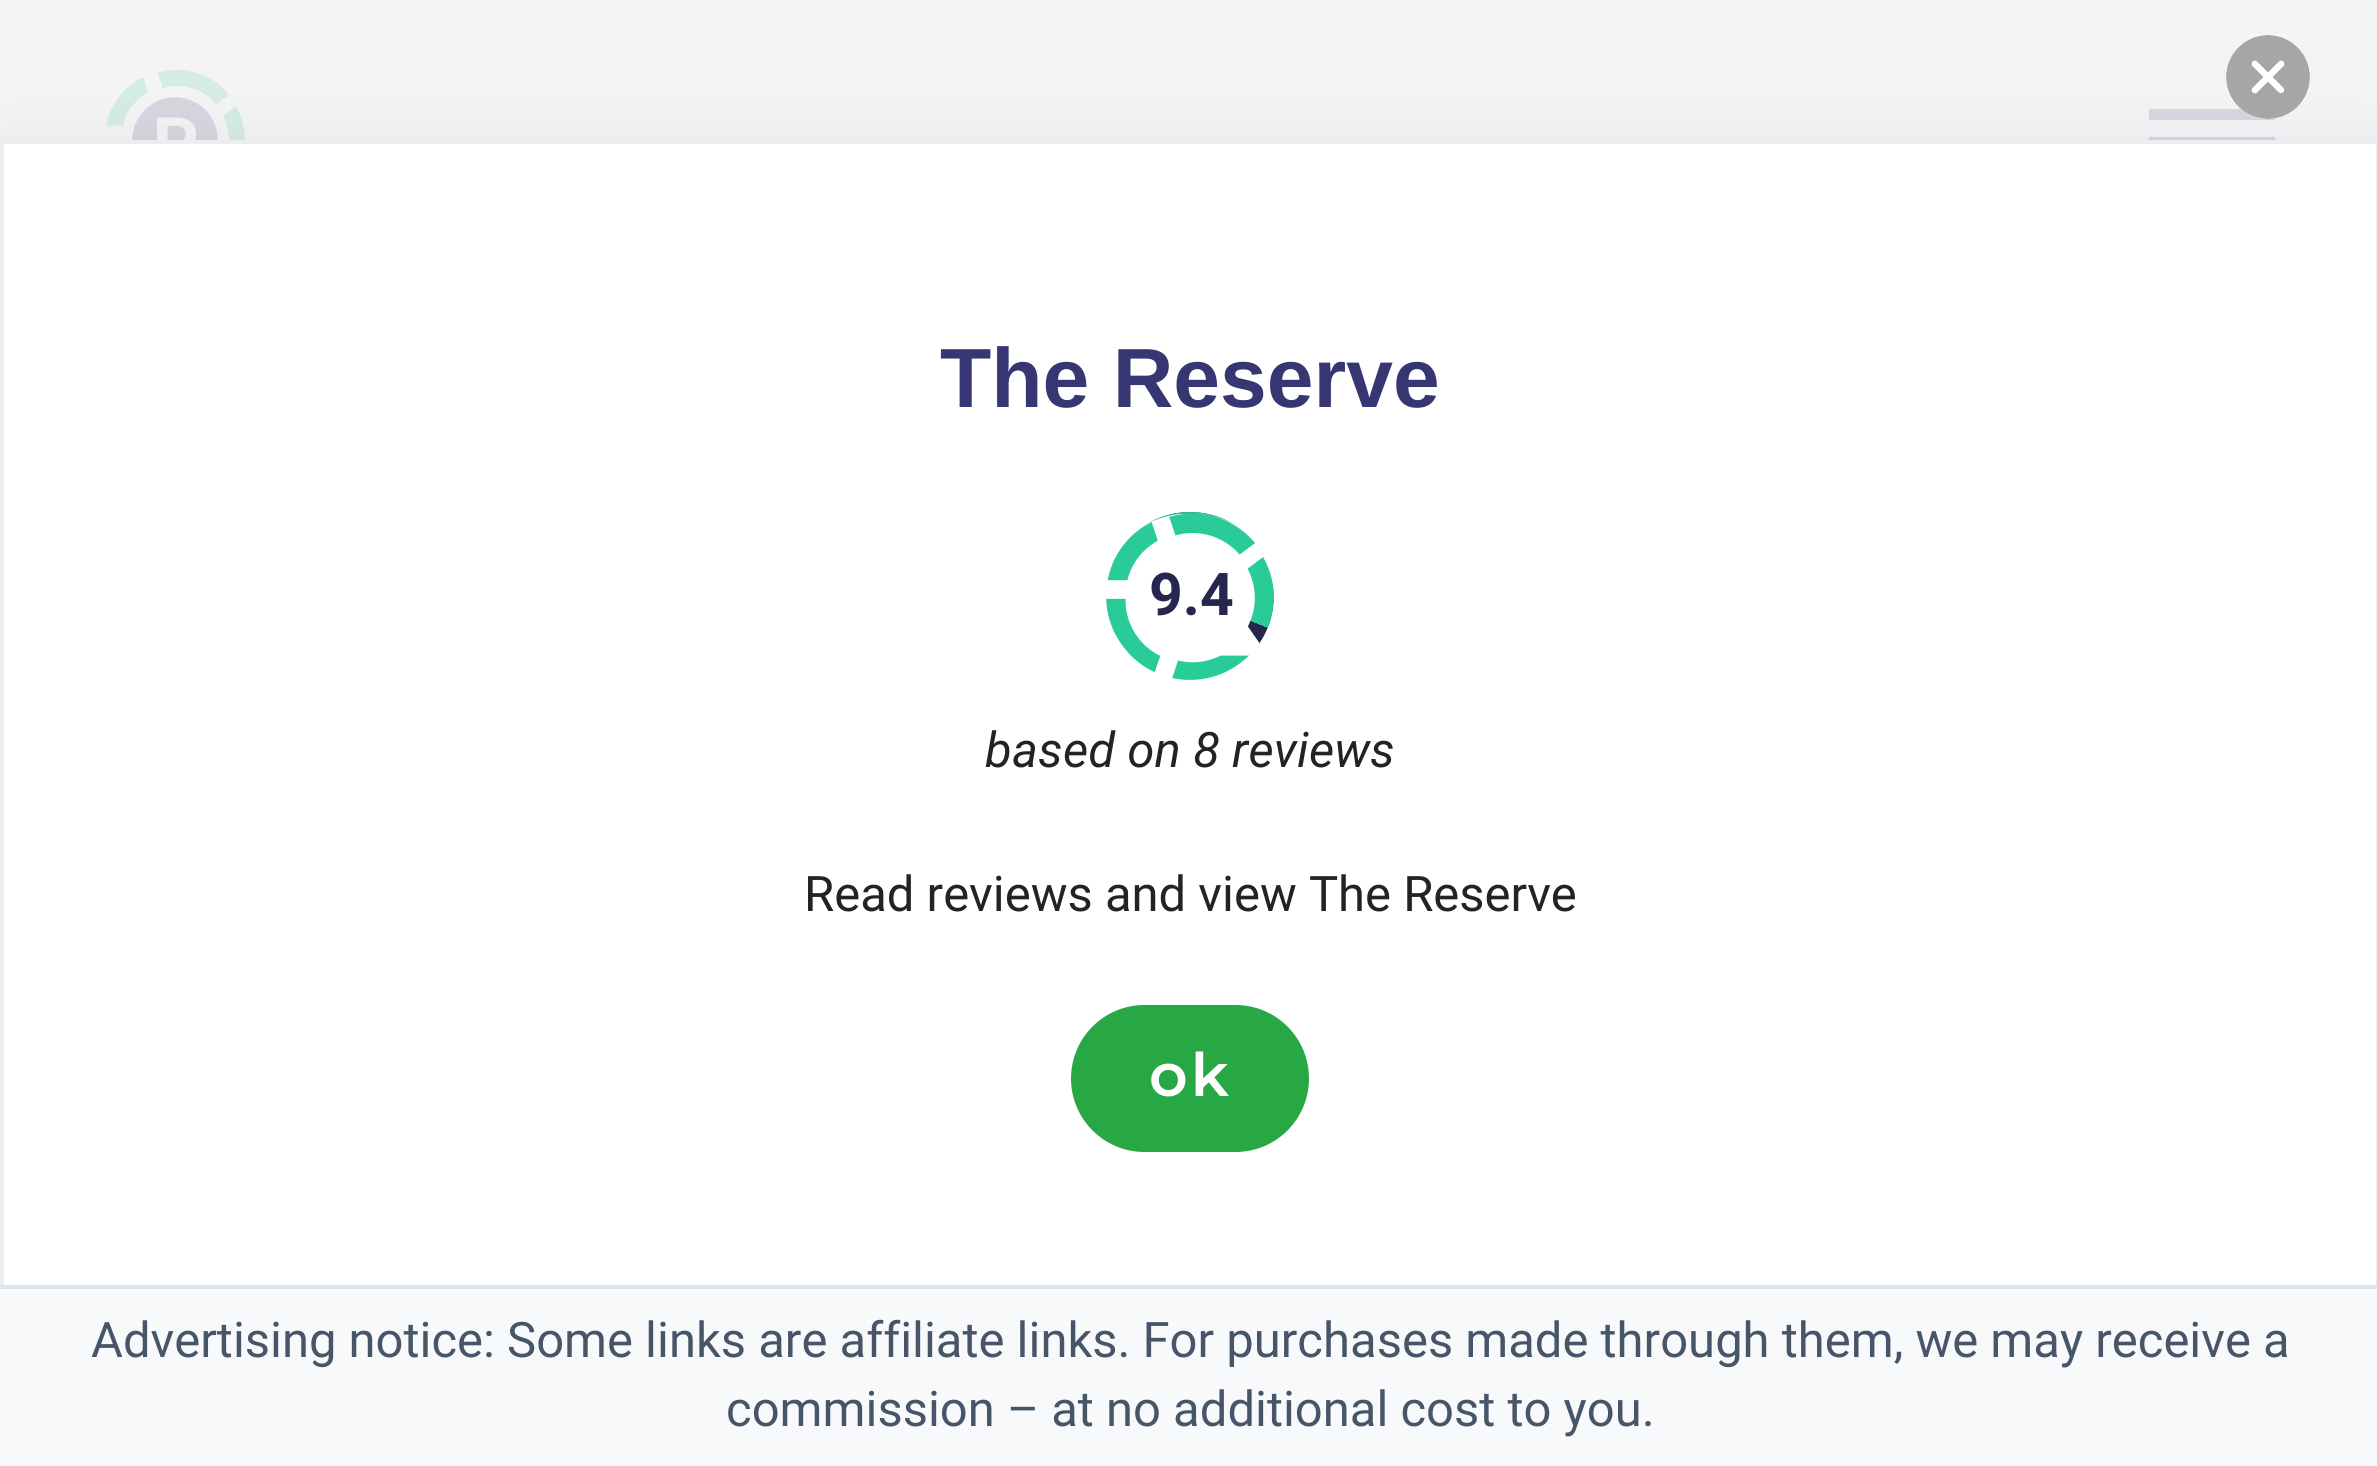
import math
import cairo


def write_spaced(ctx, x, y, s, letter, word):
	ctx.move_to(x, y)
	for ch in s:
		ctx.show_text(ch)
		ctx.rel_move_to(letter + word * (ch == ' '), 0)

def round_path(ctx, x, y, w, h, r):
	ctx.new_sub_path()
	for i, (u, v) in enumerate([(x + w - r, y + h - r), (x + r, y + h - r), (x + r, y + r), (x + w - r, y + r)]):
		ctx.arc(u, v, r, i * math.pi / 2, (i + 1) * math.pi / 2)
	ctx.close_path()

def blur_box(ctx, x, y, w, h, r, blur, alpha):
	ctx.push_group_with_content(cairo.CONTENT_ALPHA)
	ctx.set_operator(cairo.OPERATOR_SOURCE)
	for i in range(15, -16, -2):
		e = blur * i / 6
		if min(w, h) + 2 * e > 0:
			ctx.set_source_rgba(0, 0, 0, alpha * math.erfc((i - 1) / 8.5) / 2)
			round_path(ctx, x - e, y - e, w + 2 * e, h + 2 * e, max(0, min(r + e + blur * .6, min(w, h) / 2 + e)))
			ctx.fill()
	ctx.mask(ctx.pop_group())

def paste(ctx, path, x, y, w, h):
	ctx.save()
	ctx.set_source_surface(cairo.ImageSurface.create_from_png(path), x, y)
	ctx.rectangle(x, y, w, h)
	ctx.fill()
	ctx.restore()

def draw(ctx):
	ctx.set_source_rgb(0.957, 0.957, 0.957)
	ctx.paint()
	paste(ctx, 'media/1.png', 106, 70, 139, 70)
	ctx.set_source_rgb(0.839, 0.839, 0.875)
	ctx.rectangle(2149, 137, 126, 3)
	ctx.fill()
	ctx.rectangle(2149, 109, 126, 11)
	ctx.fill()
	ctx.rectangle(2, 660, 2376, 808)
	ctx.set_source_rgb(0.945, 0.945, 0.949)
	ctx.set_line_width(4)
	ctx.stroke()
	ctx.set_source_rgb(0.941, 0.941, 0.941)
	ctx.rectangle(74, 1358, 2233, 4)
	ctx.fill()
	ctx.set_source_rgb(0.212, 0.212, 0.447)
	blur_box(ctx, 0, 151, 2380, 1190, 0, 31.5, 0.1)
	ctx.set_source_rgb(1, 1, 1)
	ctx.arc(2268, 77, 42, 0, 2 * math.pi)
	ctx.fill()
	paste(ctx, 'media/2.png', 2226, 35, 84, 84)
	ctx.rectangle(2, 142, 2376, 1186)
	ctx.fill_preserve()
	ctx.set_source_rgb(0.922, 0.922, 0.945)
	ctx.stroke()
	ctx.select_font_face('Liberation Sans', cairo.FONT_SLANT_NORMAL, cairo.FONT_WEIGHT_BOLD)
	ctx.set_font_size(84)
	ctx.set_source_rgb(0.212, 0.212, 0.447)
	ctx.move_to(940, 407)
	ctx.show_text('The Reserve')
	gradient = cairo.LinearGradient(1122, 666, 1258, 526)
	gradient.add_color_stop_rgba(0.5, 0.161, 0.8, 0.596, 1)
	gradient.add_color_stop_rgba(0.5, 0.149, 0.149, 0.31, 1)
	gradient.add_color_stop_rgba(1, 0.149, 0.149, 0.31, 1)
	ctx.set_source(gradient)
	ctx.new_path()
	ctx.move_to(1239, 664)
	ctx.curve_to(1202, 691, 1149, 683, 1122, 645)
	ctx.curve_to(1095, 608, 1103, 555, 1141, 528)
	ctx.curve_to(1178, 501, 1231, 509, 1258, 547)
	ctx.curve_to(1285, 584, 1277, 637, 1239, 664)
	ctx.close_path()
	ctx.fill()
	gradient = cairo.LinearGradient(1234, 489, 1146, 703)
	gradient.add_color_stop_rgba(0.5, 0.161, 0.8, 0.596, 1)
	gradient.add_color_stop_rgba(0.5, 0.161, 0.8, 0.596, 0)
	gradient.add_color_stop_rgba(1, 0, 0, 0, 0)
	ctx.set_source(gradient)
	ctx.new_path()
	ctx.move_to(1239, 664)
	ctx.curve_to(1202, 691, 1149, 683, 1122, 645)
	ctx.curve_to(1095, 608, 1103, 555, 1141, 528)
	ctx.curve_to(1178, 501, 1231, 509, 1258, 547)
	ctx.curve_to(1285, 584, 1277, 637, 1239, 664)
	ctx.close_path()
	ctx.fill()
	paste(ctx, 'media/3.png', 1106, 514, 168, 164)
	ctx.select_font_face('Roboto', cairo.FONT_SLANT_NORMAL, cairo.FONT_WEIGHT_BOLD)
	ctx.set_font_size(59)
	ctx.set_source_rgb(0.149, 0.149, 0.31)
	ctx.move_to(1149, 615)
	ctx.show_text('9.4')
	ctx.select_font_face('Roboto', cairo.FONT_SLANT_ITALIC)
	ctx.set_font_size(49)
	ctx.set_source_rgb(0.129, 0.141, 0.153)
	ctx.move_to(985, 767)
	ctx.show_text('based on 8 reviews')
	ctx.select_font_face('Roboto')
	ctx.move_to(804, 911)
	ctx.show_text('Read reviews and view The Reserve')
	ctx.set_source_rgb(0.157, 0.655, 0.271)
	round_path(ctx, 1071, 1005, 238, 147, 73.5)
	ctx.fill()
	ctx.select_font_face('Montserrat SemiBold')
	ctx.set_font_size(60)
	ctx.set_source_rgb(1, 1, 1)
	write_spaced(ctx, 1149, 1096, 'ok', 3, 0)
	ctx.set_source_rgba(0.973, 0.98, 0.988, 0.95)
	ctx.rectangle(0, 1289, 2377, 177)
	ctx.fill()
	ctx.set_source_rgb(0.867, 0.894, 0.925)
	ctx.rectangle(0, 1285, 2377, 4)
	ctx.fill()
	ctx.select_font_face('Roboto')
	ctx.set_font_size(49)
	ctx.set_source_rgb(0.278, 0.333, 0.412)
	ctx.move_to(91, 1357)
	ctx.show_text('Advertising notice: Some links are affiliate links. For purchases made through them, we may receive a')
	ctx.move_to(726, 1426)
	ctx.show_text('commission – at no additional cost to you.')


surface = cairo.ImageSurface(cairo.FORMAT_RGB24, 2377, 1466)
ctx = cairo.Context(surface)
options = cairo.FontOptions()
options.set_hint_metrics(cairo.HINT_METRICS_OFF)
options.set_hint_style(cairo.HINT_STYLE_NONE)
ctx.set_font_options(options)
ctx.set_miter_limit(4)
draw(ctx)
surface.write_to_png('image.png')
